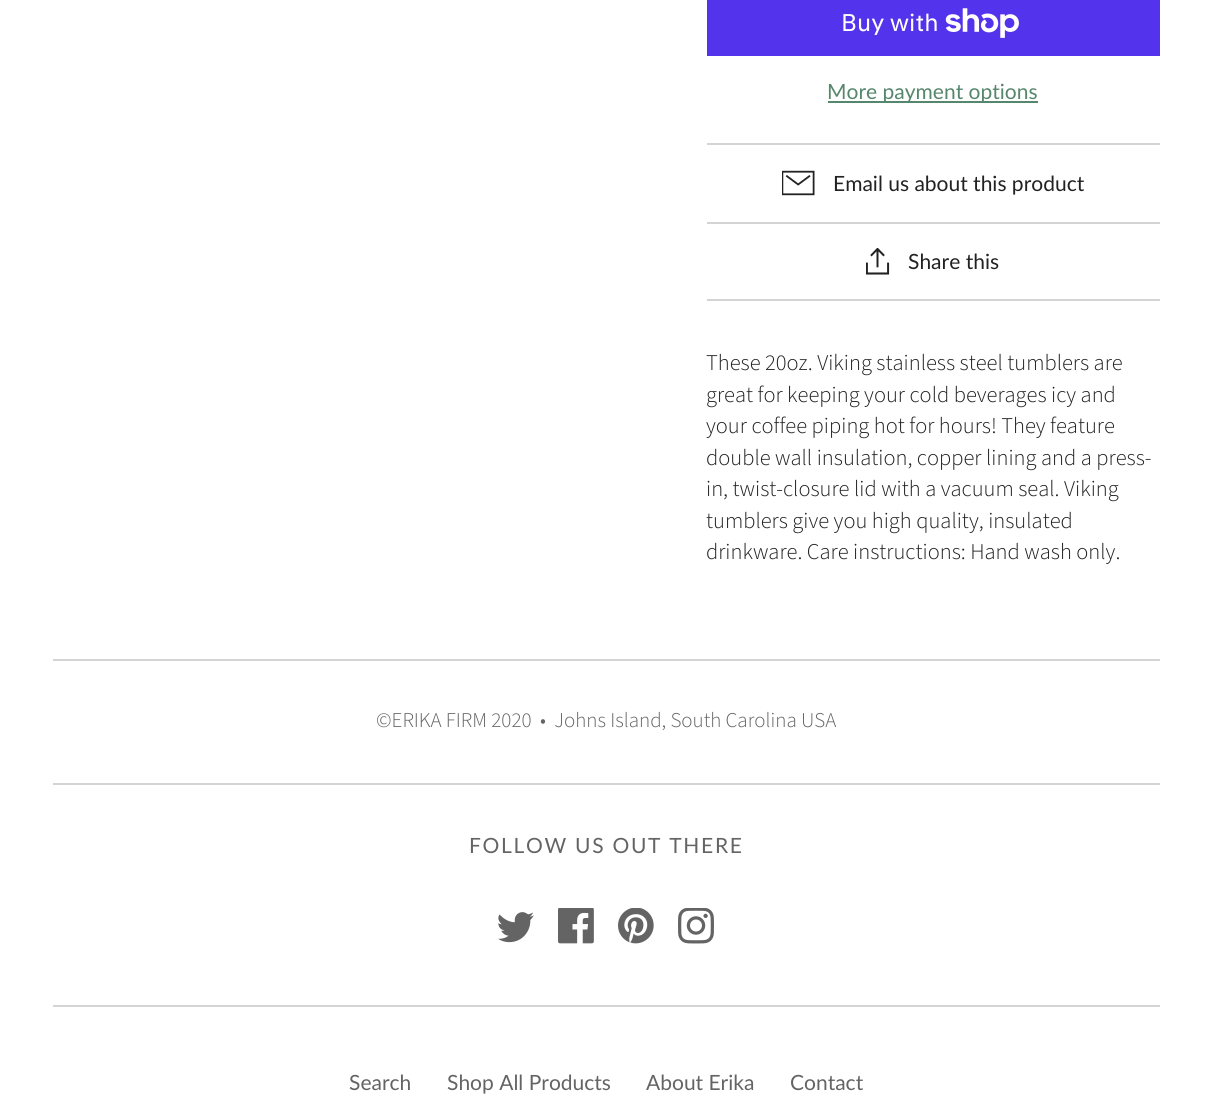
import math
import cairo


def write_spaced(ctx, x, y, s, letter, word):
	ctx.move_to(x, y)
	for ch in s:
		ctx.show_text(ch)
		ctx.rel_move_to(letter + word * (ch == ' '), 0)

def paste(ctx, path, x, y, w, h):
	ctx.save()
	ctx.set_source_surface(cairo.ImageSurface.create_from_png(path), x, y)
	ctx.rectangle(x, y, w, h)
	ctx.fill()
	ctx.restore()

def draw(ctx):
	ctx.set_source_rgb(1, 1, 1)
	ctx.paint()
	ctx.set_source_rgb(0.329, 0.2, 0.922)
	ctx.rectangle(707, 0, 453, 56)
	ctx.fill()
	ctx.select_font_face('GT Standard')
	ctx.set_font_size(24)
	ctx.set_source_rgb(1, 1, 1)
	ctx.move_to(841, 31)
	ctx.show_text('Buy with')
	paste(ctx, 'media/1.png', 945, 8, 74, 30)
	ctx.set_source_rgb(0.337, 0.525, 0.424)
	ctx.rectangle(828, 101, 210, 2)
	ctx.fill()
	ctx.select_font_face('Lato')
	ctx.set_font_size(21)
	ctx.move_to(827, 99)
	ctx.show_text('More payment options')
	ctx.set_source_rgb(0.831, 0.831, 0.831)
	ctx.rectangle(707, 143, 453, 2)
	ctx.fill()
	ctx.rectangle(707, 299, 453, 2)
	ctx.fill()
	paste(ctx, 'media/2.png', 782, 170, 33, 26)
	ctx.set_source_rgb(0.133, 0.133, 0.133)
	ctx.move_to(833, 191)
	ctx.show_text('Email us about this product')
	ctx.set_source_rgb(0.831, 0.831, 0.831)
	ctx.rectangle(707, 222, 453, 2)
	ctx.fill()
	paste(ctx, 'media/3.png', 866, 248, 24, 27)
	ctx.set_source_rgb(0.133, 0.133, 0.133)
	ctx.move_to(908, 269)
	ctx.show_text('Share this')
	ctx.select_font_face('Source Sans Pro Light')
	ctx.set_font_size(22.5)
	for x, y, s in [
		(706, 370, 'These 20oz. Viking stainless steel tumblers are'),
		(706, 402, 'great for keeping your cold beverages icy and'),
		(706, 433, 'your coffee piping hot for hours! They feature'),
		(706, 465, 'double wall insulation, copper lining and a press-'),
		(706, 496, 'in, twist-closure lid with a vacuum seal. Viking'),
		(706, 528, 'tumblers give you high quality, insulated'),
		(706, 559, 'drinkware. Care instructions: Hand wash only.'),
	]:
		ctx.move_to(x, y)
		ctx.show_text(s)
	ctx.set_source_rgb(0.831, 0.831, 0.831)
	ctx.rectangle(53, 659, 1107, 2)
	ctx.fill()
	ctx.rectangle(53, 1005, 1107, 2)
	ctx.fill()
	ctx.set_font_size(21)
	ctx.set_source_rgb(0.392, 0.392, 0.392)
	ctx.move_to(376, 727)
	ctx.show_text('©ERIKA FIRM 2020  •  Johns Island, South Carolina USA')
	ctx.set_source_rgb(0.831, 0.831, 0.831)
	ctx.rectangle(53, 783, 1107, 2)
	ctx.fill()
	ctx.select_font_face('Lato')
	ctx.set_source_rgb(0.392, 0.392, 0.392)
	write_spaced(ctx, 469, 853, 'FOLLOW US OUT THERE', 1.7, 0)
	paste(ctx, 'media/4.png', 498, 912, 36, 31)
	paste(ctx, 'media/5.png', 558, 908, 36, 36)
	paste(ctx, 'media/6.png', 618, 908, 36, 36)
	paste(ctx, 'media/7.png', 678, 908, 36, 36)
	for x, y, s in [
		(349, 1090, 'Search'),
		(447, 1090, 'Shop All Products'),
		(646, 1090, 'About Erika'),
		(790, 1090, 'Contact'),
	]:
		ctx.move_to(x, y)
		ctx.show_text(s)


surface = cairo.ImageSurface(cairo.FORMAT_RGB24, 1212, 1112)
ctx = cairo.Context(surface)
options = cairo.FontOptions()
options.set_hint_metrics(cairo.HINT_METRICS_OFF)
options.set_hint_style(cairo.HINT_STYLE_NONE)
ctx.set_font_options(options)
ctx.set_miter_limit(4)
draw(ctx)
surface.write_to_png('image.png')
